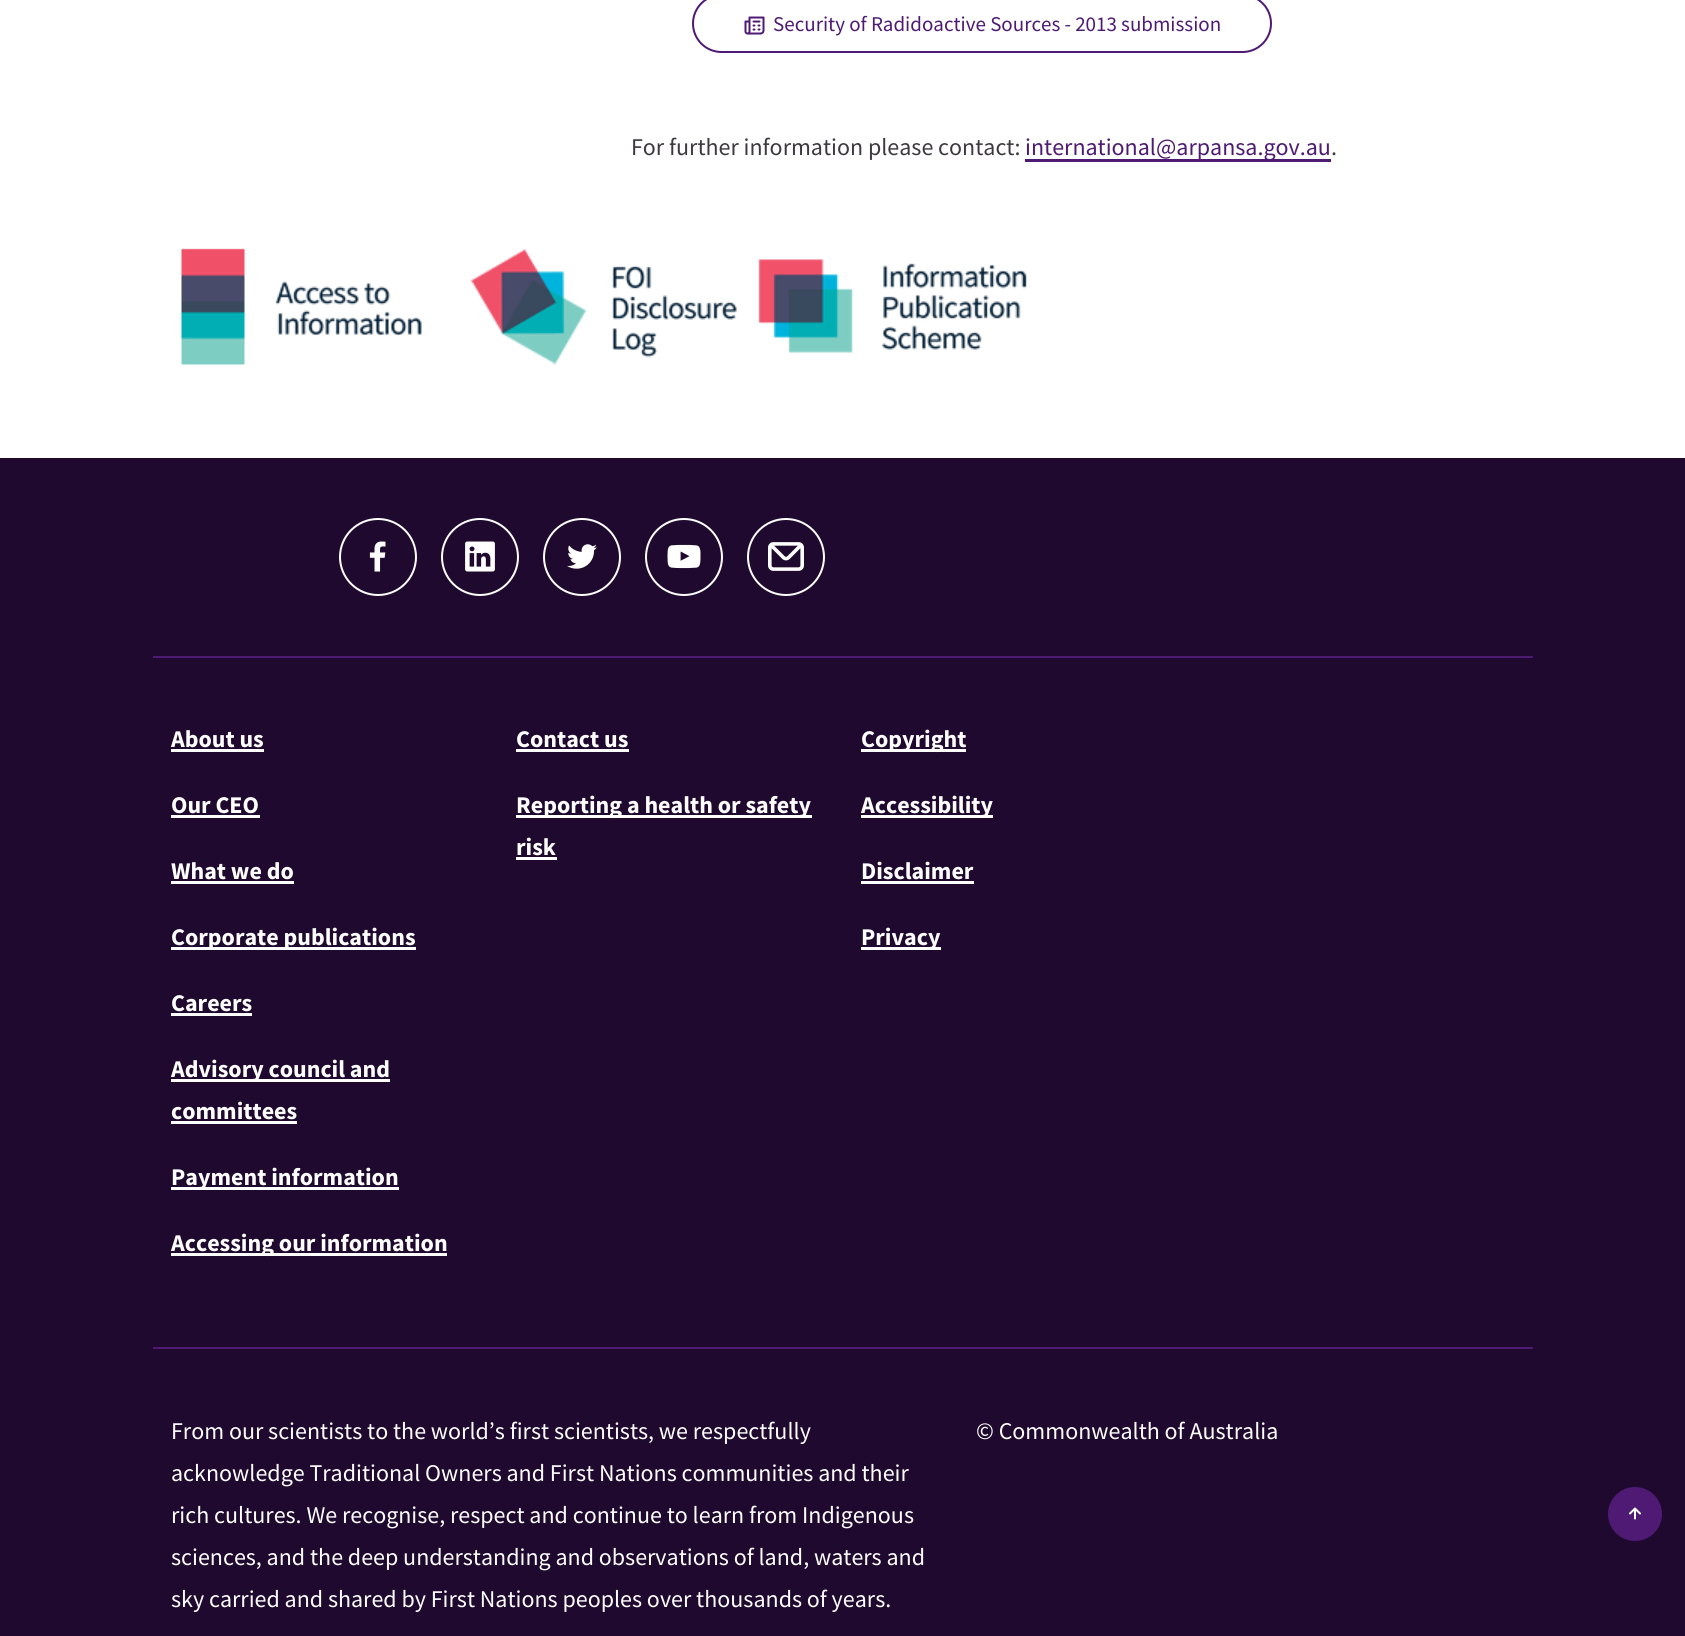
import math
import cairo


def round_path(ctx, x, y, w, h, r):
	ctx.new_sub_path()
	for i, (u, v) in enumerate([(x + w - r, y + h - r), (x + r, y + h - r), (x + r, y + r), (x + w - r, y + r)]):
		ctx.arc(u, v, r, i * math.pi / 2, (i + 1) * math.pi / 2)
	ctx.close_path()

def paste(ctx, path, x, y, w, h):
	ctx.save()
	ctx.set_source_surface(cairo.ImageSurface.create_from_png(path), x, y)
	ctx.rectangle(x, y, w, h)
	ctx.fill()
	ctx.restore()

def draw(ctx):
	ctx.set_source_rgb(1, 1, 1)
	ctx.paint()
	round_path(ctx, 693, -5, 578, 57, 28.5)
	ctx.set_source_rgb(0.306, 0.102, 0.455)
	ctx.stroke()
	paste(ctx, 'media/1.png', 744, 16, 21, 19)
	ctx.select_font_face('Source Sans Pro')
	ctx.set_font_size(21)
	ctx.move_to(773, 31)
	ctx.show_text('Security of Radidoactive Sources - 2013 submission')
	ctx.set_font_size(24)
	ctx.set_source_rgb(0.243, 0.224, 0.255)
	ctx.move_to(631, 155)
	ctx.show_text('For further information please contact:')
	ctx.set_source_rgb(0.306, 0.102, 0.455)
	ctx.rectangle(1025, 159, 306, 3)
	ctx.fill()
	ctx.move_to(1025, 155)
	ctx.show_text('international@arpansa.gov.au')
	ctx.set_source_rgb(0.243, 0.224, 0.255)
	ctx.move_to(1331, 155)
	ctx.show_text('.')
	paste(ctx, 'media/2.png', 181, 248, 241, 117)
	paste(ctx, 'media/3.png', 470, 248, 267, 117)
	paste(ctx, 'media/4.png', 758, 259, 269, 94)
	ctx.set_source_rgb(0.122, 0.039, 0.18)
	ctx.rectangle(0, 458, 1685, 1178)
	ctx.fill()
	ctx.set_source_rgb(0.306, 0.102, 0.455)
	ctx.rectangle(153, 656, 1380, 2)
	ctx.fill()
	ctx.arc(378, 557, 38, 0, 2 * math.pi)
	ctx.set_source_rgb(1, 1, 1)
	ctx.stroke()
	paste(ctx, 'media/5.png', 369, 541, 17, 31)
	ctx.arc(480, 557, 38, 0, 2 * math.pi)
	ctx.stroke()
	paste(ctx, 'media/6.png', 465, 541, 30, 31)
	ctx.arc(582, 557, 38, 0, 2 * math.pi)
	ctx.stroke()
	paste(ctx, 'media/7.png', 567, 544, 30, 25)
	ctx.arc(684, 557, 38, 0, 2 * math.pi)
	ctx.stroke()
	paste(ctx, 'media/8.png', 667, 544, 34, 25)
	ctx.arc(786, 557, 38, 0, 2 * math.pi)
	ctx.stroke()
	paste(ctx, 'media/9.png', 768, 542, 36, 29)
	ctx.set_source_rgb(0.306, 0.102, 0.455)
	ctx.rectangle(153, 1347, 1380, 2)
	ctx.fill()
	ctx.select_font_face('Source Sans Pro', cairo.FONT_SLANT_NORMAL, cairo.FONT_WEIGHT_BOLD)
	ctx.set_source_rgb(1, 1, 1)
	ctx.move_to(171, 747)
	ctx.show_text('About us')
	ctx.rectangle(171, 749, 93, 3)
	ctx.fill()
	ctx.move_to(171, 813)
	ctx.show_text('Our CEO')
	ctx.rectangle(171, 815, 89, 3)
	ctx.fill()
	ctx.move_to(171, 879)
	ctx.show_text('What we do')
	ctx.rectangle(171, 881, 123, 3)
	ctx.fill()
	ctx.rectangle(171, 947, 245, 3)
	ctx.fill()
	ctx.move_to(171, 945)
	ctx.show_text('Corporate publications')
	ctx.move_to(171, 1011)
	ctx.show_text('Careers')
	ctx.rectangle(171, 1013, 81, 3)
	ctx.fill()
	ctx.rectangle(171, 1079, 219, 3)
	ctx.fill()
	ctx.move_to(171, 1077)
	ctx.show_text('Advisory council and')
	ctx.move_to(171, 1119)
	ctx.show_text('committees')
	ctx.rectangle(171, 1121, 126, 3)
	ctx.fill()
	ctx.rectangle(171, 1187, 228, 3)
	ctx.fill()
	ctx.move_to(171, 1185)
	ctx.show_text('Payment information')
	ctx.rectangle(171, 1253, 276, 3)
	ctx.fill()
	ctx.move_to(171, 1251)
	ctx.show_text('Accessing our information')
	ctx.move_to(516, 747)
	ctx.show_text('Contact us')
	ctx.rectangle(516, 749, 113, 3)
	ctx.fill()
	ctx.rectangle(516, 815, 296, 3)
	ctx.fill()
	ctx.move_to(516, 813)
	ctx.show_text('Reporting a health or safety')
	ctx.move_to(516, 855)
	ctx.show_text('risk')
	ctx.rectangle(516, 857, 41, 3)
	ctx.fill()
	ctx.rectangle(861, 749, 105, 3)
	ctx.fill()
	ctx.move_to(861, 747)
	ctx.show_text('Copyright')
	ctx.rectangle(861, 815, 132, 3)
	ctx.fill()
	ctx.move_to(861, 813)
	ctx.show_text('Accessibility')
	ctx.move_to(861, 879)
	ctx.show_text('Disclaimer')
	ctx.rectangle(861, 881, 113, 3)
	ctx.fill()
	ctx.rectangle(861, 947, 80, 3)
	ctx.fill()
	ctx.move_to(861, 945)
	ctx.show_text('Privacy')
	ctx.select_font_face('Source Sans Pro')
	for x, y, s in [
		(171, 1439, 'From our scientists to the world’s first scientists, we respectfully'),
		(171, 1481, 'acknowledge Traditional Owners and First Nations communities and their'),
		(171, 1523, 'rich cultures. We recognise, respect and continue to learn from Indigenous'),
		(171, 1565, 'sciences, and the deep understanding and observations of land, waters and'),
		(171, 1607, 'sky carried and shared by First Nations peoples over thousands of years.'),
		(976, 1439, '© Commonwealth of Australia'),
	]:
		ctx.move_to(x, y)
		ctx.show_text(s)
	ctx.set_source_rgb(0.306, 0.102, 0.455)
	ctx.new_path()
	ctx.arc(1635, 1514, 25.5, 0, 2 * math.pi)
	ctx.fill_preserve()
	ctx.set_line_width(3)
	ctx.stroke()
	paste(ctx, 'media/10.png', 1629, 1507, 12, 13)


surface = cairo.ImageSurface(cairo.FORMAT_RGB24, 1685, 1636)
ctx = cairo.Context(surface)
options = cairo.FontOptions()
options.set_hint_metrics(cairo.HINT_METRICS_OFF)
options.set_hint_style(cairo.HINT_STYLE_NONE)
ctx.set_font_options(options)
ctx.set_miter_limit(4)
draw(ctx)
surface.write_to_png('image.png')
